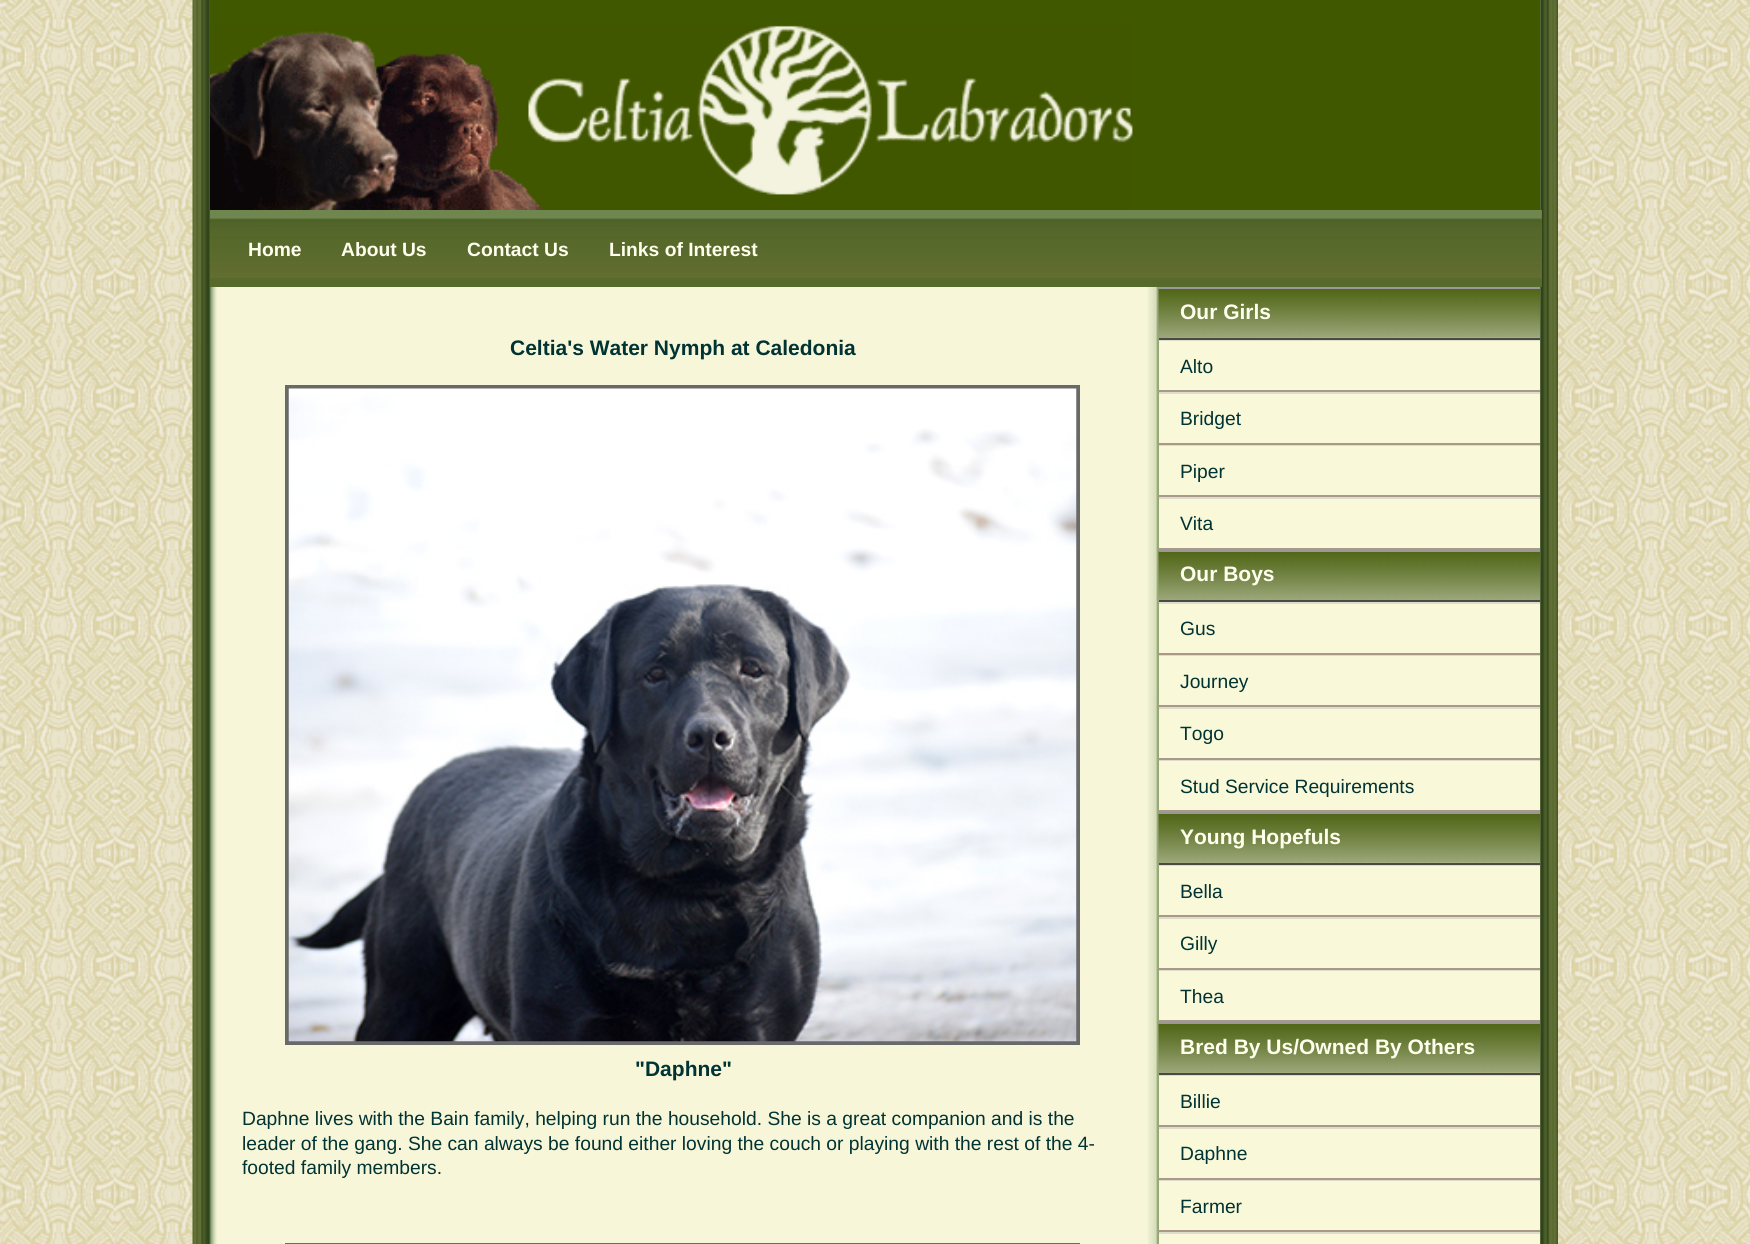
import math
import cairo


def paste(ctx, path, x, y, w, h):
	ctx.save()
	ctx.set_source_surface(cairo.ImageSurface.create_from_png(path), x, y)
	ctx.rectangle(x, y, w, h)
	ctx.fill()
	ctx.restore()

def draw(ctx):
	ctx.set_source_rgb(1, 1, 1)
	ctx.paint()
	paste(ctx, 'media/1.png', 0, 0, 1750, 1244)
	ctx.set_source_rgb(0.251, 0.349, 0)
	ctx.rectangle(1557, 0, 1, 1244)
	ctx.fill()
	paste(ctx, 'media/2.png', 192, 0, 1366, 1244)
	ctx.rectangle(210, 0, 1330, 210)
	ctx.fill()
	paste(ctx, 'media/3.png', 210, 25, 923, 185)
	ctx.set_source_rgb(0.345, 0.416, 0.169)
	ctx.rectangle(210, 210, 1332, 77)
	ctx.fill()
	paste(ctx, 'media/4.png', 210, 210, 1332, 68)
	ctx.select_font_face('Liberation Sans', cairo.FONT_SLANT_NORMAL, cairo.FONT_WEIGHT_BOLD)
	ctx.set_font_size(19.25)
	ctx.set_source_rgb(1, 1, 0.933)
	for x, y, s in [
		(248, 256, 'Home'),
		(341, 256, 'About Us'),
		(467, 256, 'Contact Us'),
		(609, 256, 'Links of Interest'),
	]:
		ctx.move_to(x, y)
		ctx.show_text(s)
	ctx.set_font_size(21)
	ctx.set_source_rgb(0, 0.2, 0.2)
	ctx.move_to(510, 355)
	ctx.show_text('Celtia\'s Water Nymph at Caledonia')
	ctx.rectangle(287, 387, 791, 656)
	ctx.set_source_rgb(0.412, 0.412, 0.412)
	ctx.set_line_width(4)
	ctx.stroke()
	paste(ctx, 'media/5.png', 288, 388, 789, 654)
	ctx.set_source_rgb(0, 0.2, 0.2)
	ctx.move_to(635, 1076)
	ctx.show_text('"Daphne"')
	ctx.select_font_face('Liberation Sans')
	ctx.set_font_size(19.25)
	for x, y, s in [
		(242, 1125, 'Daphne lives with the Bain family, helping run the household. She is a great companion and is the'),
		(242, 1150, 'leader of the gang. She can always be found either loving the couch or playing with the rest of the 4-'),
		(242, 1174, 'footed family members.'),
	]:
		ctx.move_to(x, y)
		ctx.show_text(s)
	ctx.rectangle(287, 1245, 791, 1)
	ctx.set_source_rgb(0.412, 0.412, 0.412)
	ctx.stroke()
	paste(ctx, 'media/6.png', 1158, 288, 382, 50)
	ctx.set_source_rgb(0.6, 0.6, 0.6)
	ctx.rectangle(1159, 287, 381, 2)
	ctx.fill()
	ctx.set_source_rgb(0.29, 0.29, 0.267)
	ctx.rectangle(1159, 338, 381, 2)
	ctx.fill()
	ctx.select_font_face('Liberation Sans', cairo.FONT_SLANT_NORMAL, cairo.FONT_WEIGHT_BOLD)
	ctx.set_font_size(21)
	ctx.set_source_rgb(1, 1, 0.933)
	ctx.move_to(1180, 319)
	ctx.show_text('Our Girls')
	ctx.set_source_rgb(0.867, 0.867, 0.8)
	ctx.rectangle(1159, 340, 381, 1)
	ctx.fill()
	ctx.set_source_rgb(0.667, 0.6, 0.533)
	ctx.rectangle(1159, 390, 381, 2)
	ctx.fill()
	ctx.set_source_rgb(0.976, 0.969, 0.851)
	ctx.rectangle(1159, 341, 381, 49)
	ctx.fill()
	ctx.select_font_face('Liberation Sans')
	ctx.set_font_size(19.25)
	ctx.set_source_rgb(0, 0.2, 0.2)
	ctx.move_to(1180, 373)
	ctx.show_text('Alto')
	ctx.set_source_rgb(0.867, 0.867, 0.8)
	ctx.rectangle(1159, 392, 381, 2)
	ctx.fill()
	ctx.set_source_rgb(0.667, 0.6, 0.533)
	ctx.rectangle(1159, 443, 381, 2)
	ctx.fill()
	ctx.set_source_rgb(0.976, 0.969, 0.851)
	ctx.rectangle(1159, 394, 381, 49)
	ctx.fill()
	ctx.set_source_rgb(0, 0.2, 0.2)
	ctx.move_to(1180, 425)
	ctx.show_text('Bridget')
	ctx.set_source_rgb(0.867, 0.867, 0.8)
	ctx.rectangle(1159, 445, 381, 1)
	ctx.fill()
	ctx.set_source_rgb(0.667, 0.6, 0.533)
	ctx.rectangle(1159, 495, 381, 2)
	ctx.fill()
	ctx.set_source_rgb(0.976, 0.969, 0.851)
	ctx.rectangle(1159, 446, 381, 49)
	ctx.fill()
	ctx.set_source_rgb(0, 0.2, 0.2)
	ctx.move_to(1180, 478)
	ctx.show_text('Piper')
	ctx.set_source_rgb(0.867, 0.867, 0.8)
	ctx.rectangle(1159, 497, 381, 2)
	ctx.fill()
	ctx.set_source_rgb(0.667, 0.6, 0.533)
	ctx.rectangle(1159, 548, 381, 2)
	ctx.fill()
	ctx.set_source_rgb(0.976, 0.969, 0.851)
	ctx.rectangle(1159, 499, 381, 49)
	ctx.fill()
	ctx.set_source_rgb(0, 0.2, 0.2)
	ctx.move_to(1180, 530)
	ctx.show_text('Vita')
	paste(ctx, 'media/7.png', 1158, 551, 382, 50)
	ctx.set_source_rgb(0.6, 0.6, 0.6)
	ctx.rectangle(1159, 550, 381, 2)
	ctx.fill()
	ctx.set_source_rgb(0.29, 0.29, 0.267)
	ctx.rectangle(1159, 600, 381, 2)
	ctx.fill()
	ctx.select_font_face('Liberation Sans', cairo.FONT_SLANT_NORMAL, cairo.FONT_WEIGHT_BOLD)
	ctx.set_font_size(21)
	ctx.set_source_rgb(1, 1, 0.933)
	ctx.move_to(1180, 581)
	ctx.show_text('Our Boys')
	ctx.set_source_rgb(0.867, 0.867, 0.8)
	ctx.rectangle(1159, 602, 381, 2)
	ctx.fill()
	ctx.set_source_rgb(0.667, 0.6, 0.533)
	ctx.rectangle(1159, 653, 381, 2)
	ctx.fill()
	ctx.set_source_rgb(0.976, 0.969, 0.851)
	ctx.rectangle(1159, 604, 381, 49)
	ctx.fill()
	ctx.select_font_face('Liberation Sans')
	ctx.set_font_size(19.25)
	ctx.set_source_rgb(0, 0.2, 0.2)
	ctx.move_to(1180, 635)
	ctx.show_text('Gus')
	ctx.set_source_rgb(0.867, 0.867, 0.8)
	ctx.rectangle(1159, 655, 381, 1)
	ctx.fill()
	ctx.set_source_rgb(0.667, 0.6, 0.533)
	ctx.rectangle(1159, 705, 381, 2)
	ctx.fill()
	ctx.set_source_rgb(0.976, 0.969, 0.851)
	ctx.rectangle(1159, 656, 381, 49)
	ctx.fill()
	ctx.set_source_rgb(0, 0.2, 0.2)
	ctx.move_to(1180, 688)
	ctx.show_text('Journey')
	ctx.set_source_rgb(0.867, 0.867, 0.8)
	ctx.rectangle(1159, 707, 381, 2)
	ctx.fill()
	ctx.set_source_rgb(0.667, 0.6, 0.533)
	ctx.rectangle(1159, 758, 381, 2)
	ctx.fill()
	ctx.set_source_rgb(0.976, 0.969, 0.851)
	ctx.rectangle(1159, 709, 381, 49)
	ctx.fill()
	ctx.set_source_rgb(0, 0.2, 0.2)
	ctx.move_to(1180, 740)
	ctx.show_text('Togo')
	ctx.set_source_rgb(0.867, 0.867, 0.8)
	ctx.rectangle(1159, 760, 381, 1)
	ctx.fill()
	ctx.set_source_rgb(0.667, 0.6, 0.533)
	ctx.rectangle(1159, 810, 381, 2)
	ctx.fill()
	ctx.set_source_rgb(0.976, 0.969, 0.851)
	ctx.rectangle(1159, 761, 381, 49)
	ctx.fill()
	ctx.set_source_rgb(0, 0.2, 0.2)
	ctx.move_to(1180, 793)
	ctx.show_text('Stud Service Requirements')
	paste(ctx, 'media/8.png', 1158, 813, 382, 50)
	ctx.set_source_rgb(0.6, 0.6, 0.6)
	ctx.rectangle(1159, 812, 381, 2)
	ctx.fill()
	ctx.set_source_rgb(0.29, 0.29, 0.267)
	ctx.rectangle(1159, 863, 381, 2)
	ctx.fill()
	ctx.select_font_face('Liberation Sans', cairo.FONT_SLANT_NORMAL, cairo.FONT_WEIGHT_BOLD)
	ctx.set_font_size(21)
	ctx.set_source_rgb(1, 1, 0.933)
	ctx.move_to(1180, 844)
	ctx.show_text('Young Hopefuls')
	ctx.set_source_rgb(0.867, 0.867, 0.8)
	ctx.rectangle(1159, 865, 381, 1)
	ctx.fill()
	ctx.set_source_rgb(0.667, 0.6, 0.533)
	ctx.rectangle(1159, 915, 381, 2)
	ctx.fill()
	ctx.set_source_rgb(0.976, 0.969, 0.851)
	ctx.rectangle(1159, 866, 381, 49)
	ctx.fill()
	ctx.select_font_face('Liberation Sans')
	ctx.set_font_size(19.25)
	ctx.set_source_rgb(0, 0.2, 0.2)
	ctx.move_to(1180, 898)
	ctx.show_text('Bella')
	ctx.set_source_rgb(0.867, 0.867, 0.8)
	ctx.rectangle(1159, 917, 381, 2)
	ctx.fill()
	ctx.set_source_rgb(0.667, 0.6, 0.533)
	ctx.rectangle(1159, 968, 381, 2)
	ctx.fill()
	ctx.set_source_rgb(0.976, 0.969, 0.851)
	ctx.rectangle(1159, 919, 381, 49)
	ctx.fill()
	ctx.set_source_rgb(0, 0.2, 0.2)
	ctx.move_to(1180, 950)
	ctx.show_text('Gilly')
	ctx.set_source_rgb(0.867, 0.867, 0.8)
	ctx.rectangle(1159, 970, 381, 1)
	ctx.fill()
	ctx.set_source_rgb(0.667, 0.6, 0.533)
	ctx.rectangle(1159, 1020, 381, 2)
	ctx.fill()
	ctx.set_source_rgb(0.976, 0.969, 0.851)
	ctx.rectangle(1159, 971, 381, 49)
	ctx.fill()
	ctx.set_source_rgb(0, 0.2, 0.2)
	ctx.move_to(1180, 1003)
	ctx.show_text('Thea')
	paste(ctx, 'media/9.png', 1158, 1023, 382, 50)
	ctx.set_source_rgb(0.6, 0.6, 0.6)
	ctx.rectangle(1159, 1022, 381, 2)
	ctx.fill()
	ctx.set_source_rgb(0.29, 0.29, 0.267)
	ctx.rectangle(1159, 1073, 381, 2)
	ctx.fill()
	ctx.select_font_face('Liberation Sans', cairo.FONT_SLANT_NORMAL, cairo.FONT_WEIGHT_BOLD)
	ctx.set_font_size(21)
	ctx.set_source_rgb(1, 1, 0.933)
	ctx.move_to(1180, 1054)
	ctx.show_text('Bred By Us/Owned By Others')
	ctx.set_source_rgb(0.867, 0.867, 0.8)
	ctx.rectangle(1159, 1075, 381, 1)
	ctx.fill()
	ctx.set_source_rgb(0.667, 0.6, 0.533)
	ctx.rectangle(1159, 1125, 381, 2)
	ctx.fill()
	ctx.set_source_rgb(0.976, 0.969, 0.851)
	ctx.rectangle(1159, 1076, 381, 49)
	ctx.fill()
	ctx.select_font_face('Liberation Sans')
	ctx.set_font_size(19.25)
	ctx.set_source_rgb(0, 0.2, 0.2)
	ctx.move_to(1180, 1108)
	ctx.show_text('Billie')
	ctx.set_source_rgb(0.867, 0.867, 0.8)
	ctx.rectangle(1159, 1127, 381, 2)
	ctx.fill()
	ctx.set_source_rgb(0.667, 0.6, 0.533)
	ctx.rectangle(1159, 1178, 381, 2)
	ctx.fill()
	ctx.set_source_rgb(0.976, 0.969, 0.851)
	ctx.rectangle(1159, 1129, 381, 49)
	ctx.fill()
	ctx.set_source_rgb(0, 0.2, 0.2)
	ctx.move_to(1180, 1160)
	ctx.show_text('Daphne')
	ctx.set_source_rgb(0.867, 0.867, 0.8)
	ctx.rectangle(1159, 1180, 381, 1)
	ctx.fill()
	ctx.set_source_rgb(0.667, 0.6, 0.533)
	ctx.rectangle(1159, 1230, 381, 2)
	ctx.fill()
	ctx.set_source_rgb(0.976, 0.969, 0.851)
	ctx.rectangle(1159, 1181, 381, 49)
	ctx.fill()
	ctx.set_source_rgb(0, 0.2, 0.2)
	ctx.move_to(1180, 1213)
	ctx.show_text('Farmer')
	ctx.set_source_rgb(0.867, 0.867, 0.8)
	ctx.rectangle(1159, 1232, 381, 2)
	ctx.fill()
	ctx.set_source_rgb(0.976, 0.969, 0.851)
	ctx.rectangle(1159, 1234, 381, 10)
	ctx.fill()


surface = cairo.ImageSurface(cairo.FORMAT_RGB24, 1750, 1244)
ctx = cairo.Context(surface)
options = cairo.FontOptions()
options.set_hint_metrics(cairo.HINT_METRICS_OFF)
options.set_hint_style(cairo.HINT_STYLE_NONE)
ctx.set_font_options(options)
ctx.set_miter_limit(4)
draw(ctx)
surface.write_to_png('image.png')
